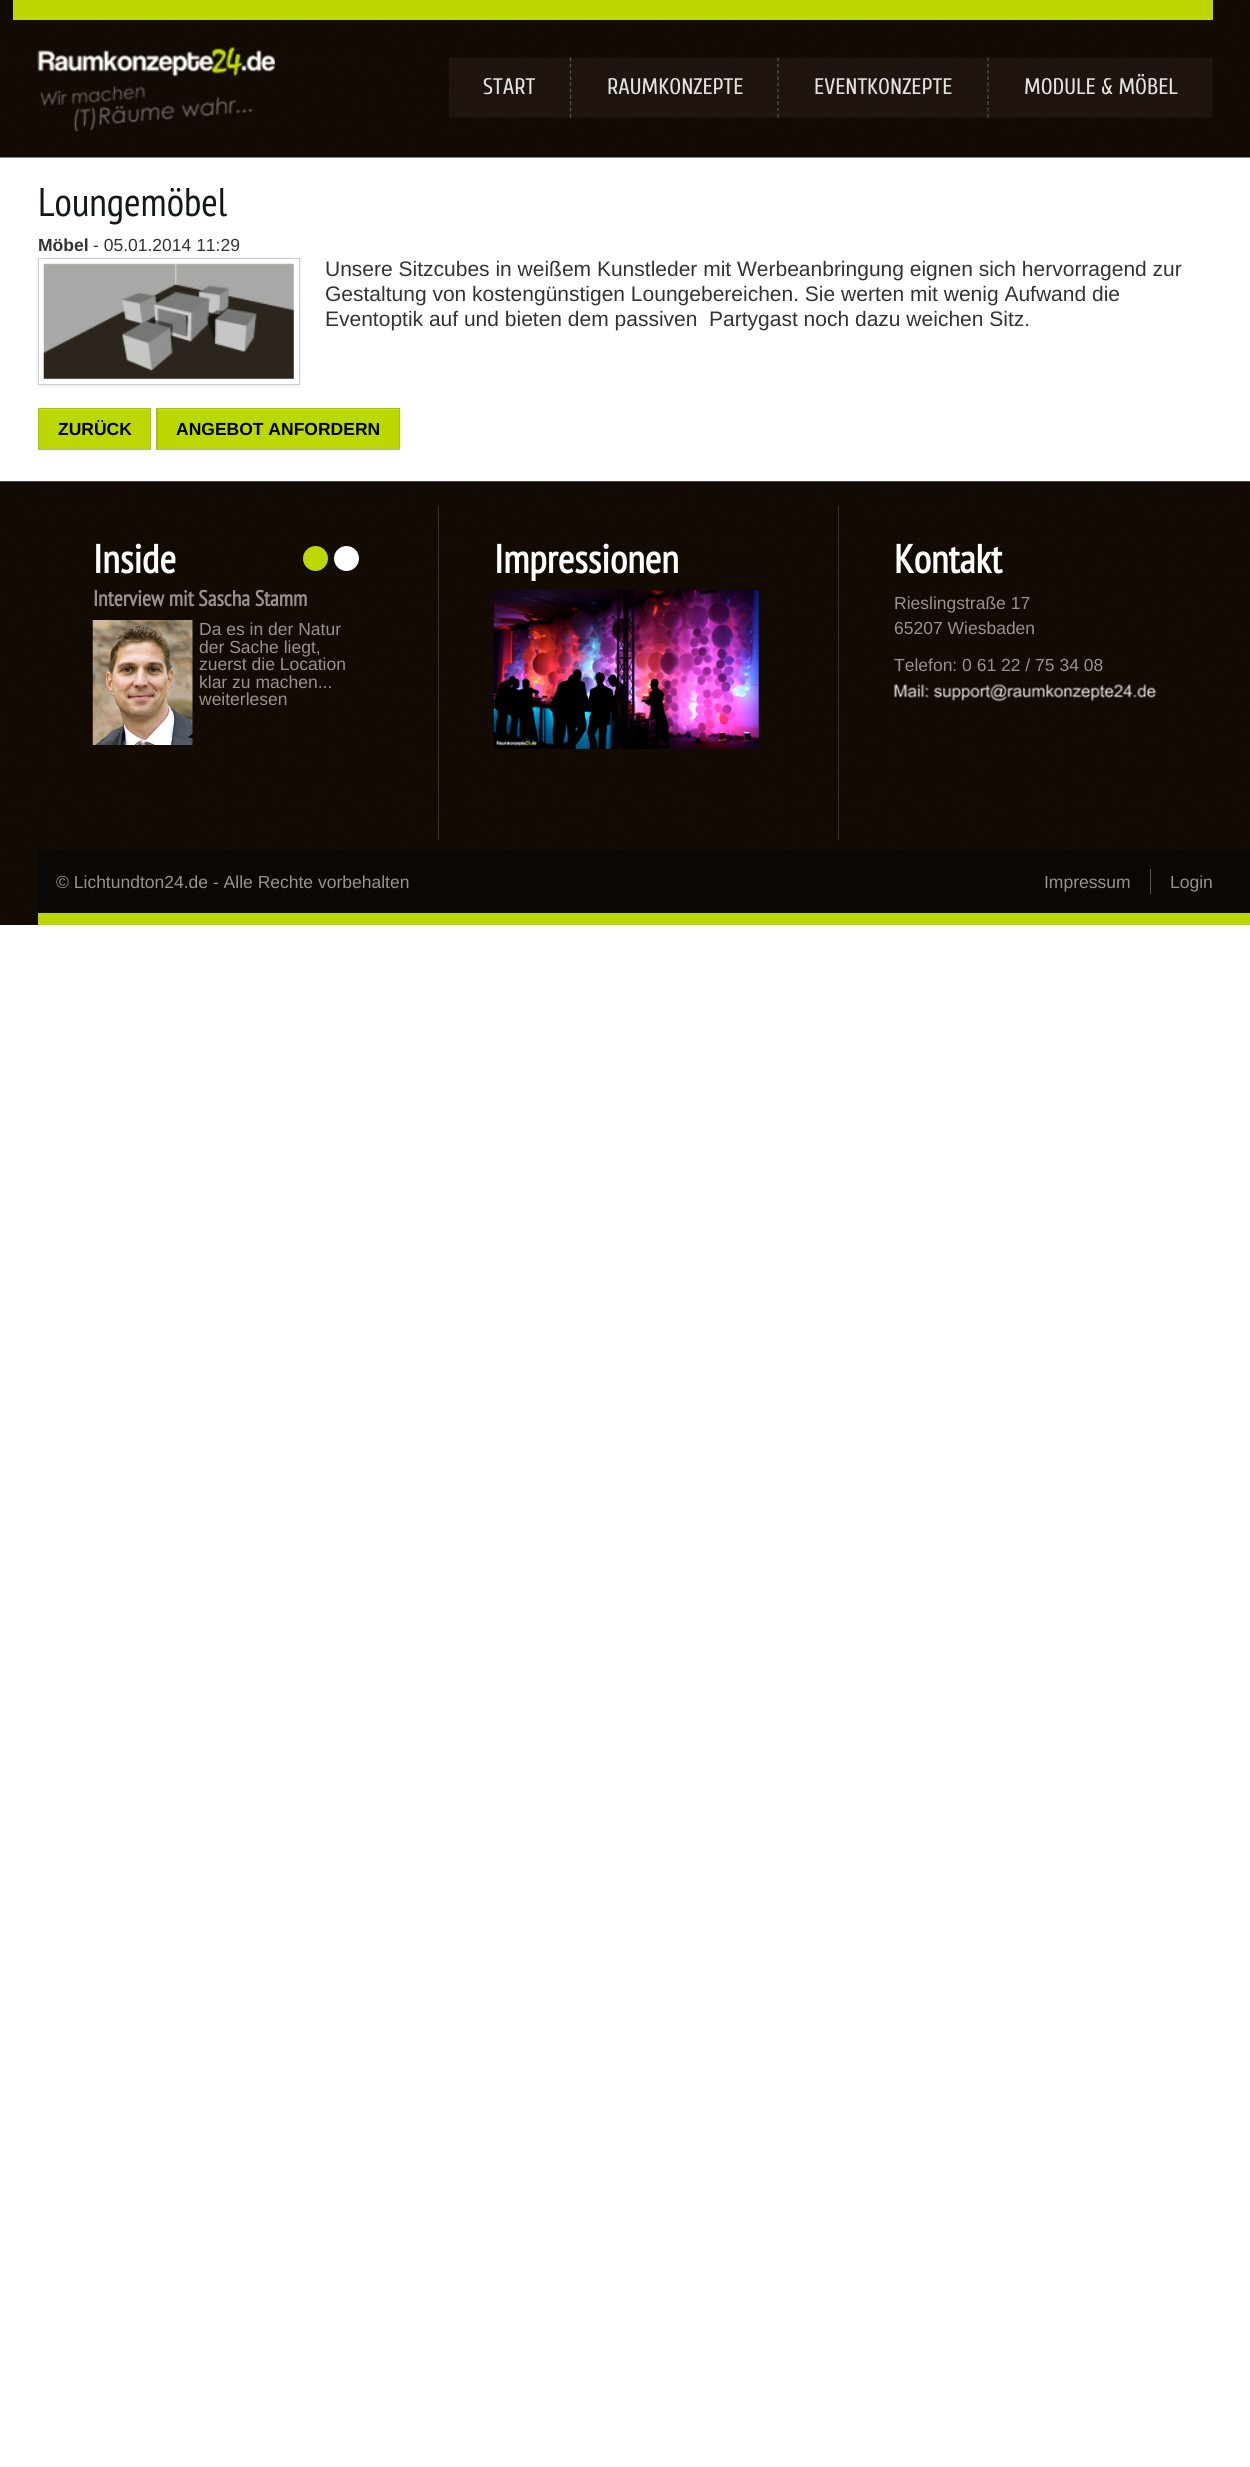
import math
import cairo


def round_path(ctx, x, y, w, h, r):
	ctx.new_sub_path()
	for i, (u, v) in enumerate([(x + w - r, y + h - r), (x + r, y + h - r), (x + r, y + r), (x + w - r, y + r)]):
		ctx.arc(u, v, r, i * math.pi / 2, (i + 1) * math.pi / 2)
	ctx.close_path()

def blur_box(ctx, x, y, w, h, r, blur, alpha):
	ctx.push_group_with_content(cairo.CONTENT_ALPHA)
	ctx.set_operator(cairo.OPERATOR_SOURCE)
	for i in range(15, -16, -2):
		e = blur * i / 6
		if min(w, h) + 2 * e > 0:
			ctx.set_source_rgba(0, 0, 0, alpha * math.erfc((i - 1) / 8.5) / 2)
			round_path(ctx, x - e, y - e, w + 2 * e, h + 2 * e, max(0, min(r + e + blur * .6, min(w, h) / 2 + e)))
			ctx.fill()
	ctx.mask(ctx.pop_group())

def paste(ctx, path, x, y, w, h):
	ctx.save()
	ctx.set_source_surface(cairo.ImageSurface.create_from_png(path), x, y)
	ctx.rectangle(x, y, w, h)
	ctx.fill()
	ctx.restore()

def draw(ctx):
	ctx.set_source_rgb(1, 1, 1)
	ctx.paint()
	paste(ctx, 'media/1.png', 0, 0, 1250, 158)
	ctx.set_source_rgb(0.741, 0.843, 0.012)
	ctx.rectangle(13, 0, 1200, 20)
	ctx.fill()
	paste(ctx, 'media/2.png', 37, 46, 238, 86)
	paste(ctx, 'media/3.png', 449, 57, 121, 61)
	ctx.select_font_face('Cuprum')
	ctx.set_font_size(22.5)
	ctx.set_source_rgb(0.886, 0.886, 0.886)
	ctx.move_to(483, 94)
	ctx.show_text('START')
	paste(ctx, 'media/4.png', 570, 57, 208, 61)
	ctx.new_path()
	ctx.move_to(570.5, 57.5)
	ctx.line_to(570.5, 117.5)
	ctx.set_source_rgb(0.333, 0.333, 0.333)
	ctx.set_line_width(1.2)
	ctx.set_dash([3.75, 2.5])
	ctx.stroke()
	ctx.set_source_rgb(0.886, 0.886, 0.886)
	ctx.move_to(607, 94)
	ctx.show_text('RAUMKONZEPTE')
	paste(ctx, 'media/5.png', 777, 57, 211, 61)
	ctx.new_path()
	ctx.move_to(778, 57.5)
	ctx.line_to(778, 117.5)
	ctx.set_source_rgb(0.333, 0.333, 0.333)
	ctx.stroke()
	ctx.set_source_rgb(0.886, 0.886, 0.886)
	ctx.move_to(814, 94)
	ctx.show_text('EVENTKONZEPTE')
	paste(ctx, 'media/6.png', 988, 57, 225, 61)
	ctx.new_path()
	ctx.move_to(988, 57.5)
	ctx.line_to(988, 117.5)
	ctx.set_source_rgb(0.333, 0.333, 0.333)
	ctx.stroke()
	ctx.set_source_rgb(0.886, 0.886, 0.886)
	ctx.move_to(1024, 94)
	ctx.show_text('MODULE & MÖBEL')
	ctx.select_font_face('PT Sans Narrow')
	ctx.set_font_size(40)
	ctx.set_source_rgb(0.078, 0.094, 0.106)
	ctx.move_to(38, 216)
	ctx.show_text('Loungemöbel')
	ctx.select_font_face('Liberation Sans', cairo.FONT_SLANT_NORMAL, cairo.FONT_WEIGHT_BOLD)
	ctx.set_font_size(17.5)
	ctx.set_source_rgb(0.2, 0.2, 0.2)
	ctx.move_to(38, 251)
	ctx.show_text('Möbel')
	ctx.select_font_face('Liberation Sans')
	ctx.move_to(93, 251)
	ctx.show_text('- 05.01.2014 11:29')
	ctx.save()
	ctx.set_fill_rule(cairo.FILL_RULE_EVEN_ODD)
	ctx.new_path()
	ctx.move_to(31, 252)
	ctx.line_to(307, 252)
	ctx.line_to(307, 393)
	ctx.line_to(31, 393)
	ctx.close_path()
	ctx.move_to(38, 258)
	ctx.line_to(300, 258)
	ctx.line_to(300, 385)
	ctx.line_to(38, 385)
	ctx.close_path()
	ctx.clip()
	ctx.set_source_rgb(0, 0, 0)
	blur_box(ctx, 38, 259, 262, 127, 0, 2, 0.1)
	ctx.restore()
	ctx.rectangle(38.5, 258.5, 261, 126)
	ctx.set_source_rgb(0.8, 0.8, 0.8)
	ctx.set_line_width(1)
	ctx.set_dash([])
	ctx.stroke()
	paste(ctx, 'media/7.png', 43, 263, 251, 116)
	ctx.set_font_size(21)
	ctx.set_source_rgb(0.2, 0.2, 0.2)
	for x, y, s in [
		(325, 276, 'Unsere Sitzcubes in weißem Kunstleder mit Werbeanbringung eignen sich hervorragend zur'),
		(325, 301, 'Gestaltung von kostengünstigen Loungebereichen. Sie werten mit wenig Aufwand die'),
		(325, 326, 'Eventoptik auf und bieten dem passiven  Partygast noch dazu weichen Sitz.'),
	]:
		ctx.move_to(x, y)
		ctx.show_text(s)
	ctx.set_source_rgb(0, 0, 0)
	blur_box(ctx, 38, 409, 113, 42, 0, 1, 0.05)
	ctx.set_source_rgb(0.741, 0.843, 0.012)
	ctx.rectangle(38, 408, 113, 42)
	ctx.fill()
	ctx.set_source_rgb(0.792, 0.875, 0.208)
	ctx.rectangle(39, 409, 111, 1)
	ctx.fill()
	ctx.set_source_rgb(0.667, 0.761, 0.012)
	ctx.new_path()
	ctx.move_to(38, 408)
	ctx.line_to(151, 408)
	ctx.line_to(150, 409)
	ctx.line_to(39, 409)
	ctx.close_path()
	ctx.fill()
	ctx.set_source_rgba(0, 0, 0, 0.1)
	ctx.new_path()
	ctx.move_to(151, 408)
	ctx.line_to(151, 450)
	ctx.line_to(150, 449)
	ctx.line_to(150, 409)
	ctx.close_path()
	ctx.fill()
	ctx.set_source_rgb(0.702, 0.702, 0.702)
	ctx.new_path()
	ctx.move_to(151, 450)
	ctx.line_to(38, 450)
	ctx.line_to(39, 449)
	ctx.line_to(150, 449)
	ctx.close_path()
	ctx.fill()
	ctx.set_source_rgba(0, 0, 0, 0.1)
	ctx.new_path()
	ctx.move_to(38, 450)
	ctx.line_to(38, 408)
	ctx.line_to(39, 409)
	ctx.line_to(39, 449)
	ctx.close_path()
	ctx.fill()
	ctx.select_font_face('Liberation Sans', cairo.FONT_SLANT_NORMAL, cairo.FONT_WEIGHT_BOLD)
	ctx.set_font_size(17.5)
	ctx.set_source_rgb(0.004, 0.004, 0.004)
	ctx.move_to(58, 435)
	ctx.show_text('ZURÜCK')
	ctx.set_source_rgb(0, 0, 0)
	blur_box(ctx, 156, 409, 244, 42, 0, 1, 0.05)
	ctx.set_source_rgb(0.741, 0.843, 0.012)
	ctx.rectangle(156, 408, 244, 42)
	ctx.fill()
	ctx.set_source_rgb(0.792, 0.875, 0.208)
	ctx.rectangle(158, 409, 241, 1)
	ctx.fill()
	ctx.set_source_rgb(0.667, 0.761, 0.012)
	ctx.new_path()
	ctx.move_to(156, 408)
	ctx.line_to(400, 408)
	ctx.line_to(399, 409)
	ctx.line_to(158, 409)
	ctx.close_path()
	ctx.fill()
	ctx.set_source_rgba(0, 0, 0, 0.1)
	ctx.new_path()
	ctx.move_to(400, 408)
	ctx.line_to(400, 450)
	ctx.line_to(399, 449)
	ctx.line_to(399, 409)
	ctx.close_path()
	ctx.fill()
	ctx.set_source_rgb(0.702, 0.702, 0.702)
	ctx.new_path()
	ctx.move_to(400, 450)
	ctx.line_to(156, 450)
	ctx.line_to(158, 449)
	ctx.line_to(399, 449)
	ctx.close_path()
	ctx.fill()
	ctx.set_source_rgba(0, 0, 0, 0.1)
	ctx.new_path()
	ctx.move_to(156, 450)
	ctx.line_to(156, 408)
	ctx.line_to(158, 409)
	ctx.line_to(158, 449)
	ctx.close_path()
	ctx.fill()
	ctx.set_source_rgb(0.004, 0.004, 0.004)
	ctx.move_to(176, 435)
	ctx.show_text('ANGEBOT ANFORDERN')
	paste(ctx, 'media/8.png', 0, 481, 1250, 444)
	ctx.select_font_face('PT Sans Narrow', cairo.FONT_SLANT_NORMAL, cairo.FONT_WEIGHT_BOLD)
	ctx.set_font_size(40)
	ctx.set_source_rgb(1, 1, 1)
	ctx.move_to(93, 573)
	ctx.show_text('Inside')
	ctx.set_source_rgb(0.741, 0.843, 0.012)
	ctx.new_path()
	ctx.arc(315.5, 558.5, 12.5, 0, 2 * math.pi)
	ctx.fill()
	ctx.set_source_rgb(1, 1, 1)
	ctx.arc(346.5, 558.5, 12.5, 0, 2 * math.pi)
	ctx.fill()
	ctx.set_font_size(21.9)
	ctx.set_source_rgb(0.6, 0.573, 0.541)
	ctx.move_to(93, 606)
	ctx.show_text('Interview mit Sascha Stamm')
	paste(ctx, 'media/9.png', 92, 620, 101, 125)
	ctx.select_font_face('Liberation Sans')
	ctx.set_font_size(17.5)
	for x, y, s in [
		(199, 635, 'Da es in der Natur'),
		(199, 653, 'der Sache liegt,'),
		(199, 670, 'zuerst die Location'),
		(199, 688, 'klar zu machen...'),
		(199, 705, 'weiterlesen'),
	]:
		ctx.move_to(x, y)
		ctx.show_text(s)
	ctx.set_source_rgb(0.2, 0.2, 0.2)
	ctx.rectangle(438, 506, 1, 334)
	ctx.fill()
	ctx.select_font_face('PT Sans Narrow', cairo.FONT_SLANT_NORMAL, cairo.FONT_WEIGHT_BOLD)
	ctx.set_font_size(40)
	ctx.set_source_rgb(1, 1, 1)
	ctx.move_to(494, 573)
	ctx.show_text('Impressionen')
	paste(ctx, 'media/10.png', 493, 590, 266, 159)
	ctx.set_source_rgb(0.2, 0.2, 0.2)
	ctx.rectangle(838, 506, 1, 334)
	ctx.fill()
	ctx.set_source_rgb(1, 1, 1)
	ctx.move_to(894, 573)
	ctx.show_text('Kontakt')
	ctx.select_font_face('Liberation Sans')
	ctx.set_font_size(17.5)
	ctx.set_source_rgb(0.6, 0.573, 0.541)
	for x, y, s in [
		(894, 609, 'Rieslingstraße 17'),
		(894, 634, '65207 Wiesbaden'),
		(894, 671, 'Telefon: 0 61 22 / 75 34 08'),
	]:
		ctx.move_to(x, y)
		ctx.show_text(s)
	paste(ctx, 'media/11.png', 893, 683, 264, 19)
	ctx.set_source_rgb(0.043, 0.031, 0.02)
	ctx.rectangle(38, 850, 1212, 63)
	ctx.fill()
	ctx.set_source_rgb(0.741, 0.843, 0.012)
	ctx.rectangle(38, 913, 1212, 12)
	ctx.fill()
	ctx.set_source_rgb(0.6, 0.573, 0.541)
	ctx.move_to(56, 888)
	ctx.show_text('© Lichtundton24.de - Alle Rechte vorbehalten')
	ctx.move_to(1044, 888)
	ctx.show_text('Impressum')
	ctx.set_source_rgb(0.333, 0.333, 0.333)
	ctx.rectangle(1150, 869, 1, 25)
	ctx.fill()
	ctx.set_source_rgb(0.6, 0.573, 0.541)
	ctx.move_to(1170, 888)
	ctx.show_text('Login')


surface = cairo.ImageSurface(cairo.FORMAT_RGB24, 1250, 2467)
ctx = cairo.Context(surface)
options = cairo.FontOptions()
options.set_hint_metrics(cairo.HINT_METRICS_OFF)
options.set_hint_style(cairo.HINT_STYLE_NONE)
ctx.set_font_options(options)
ctx.set_miter_limit(4)
draw(ctx)
surface.write_to_png('image.png')
